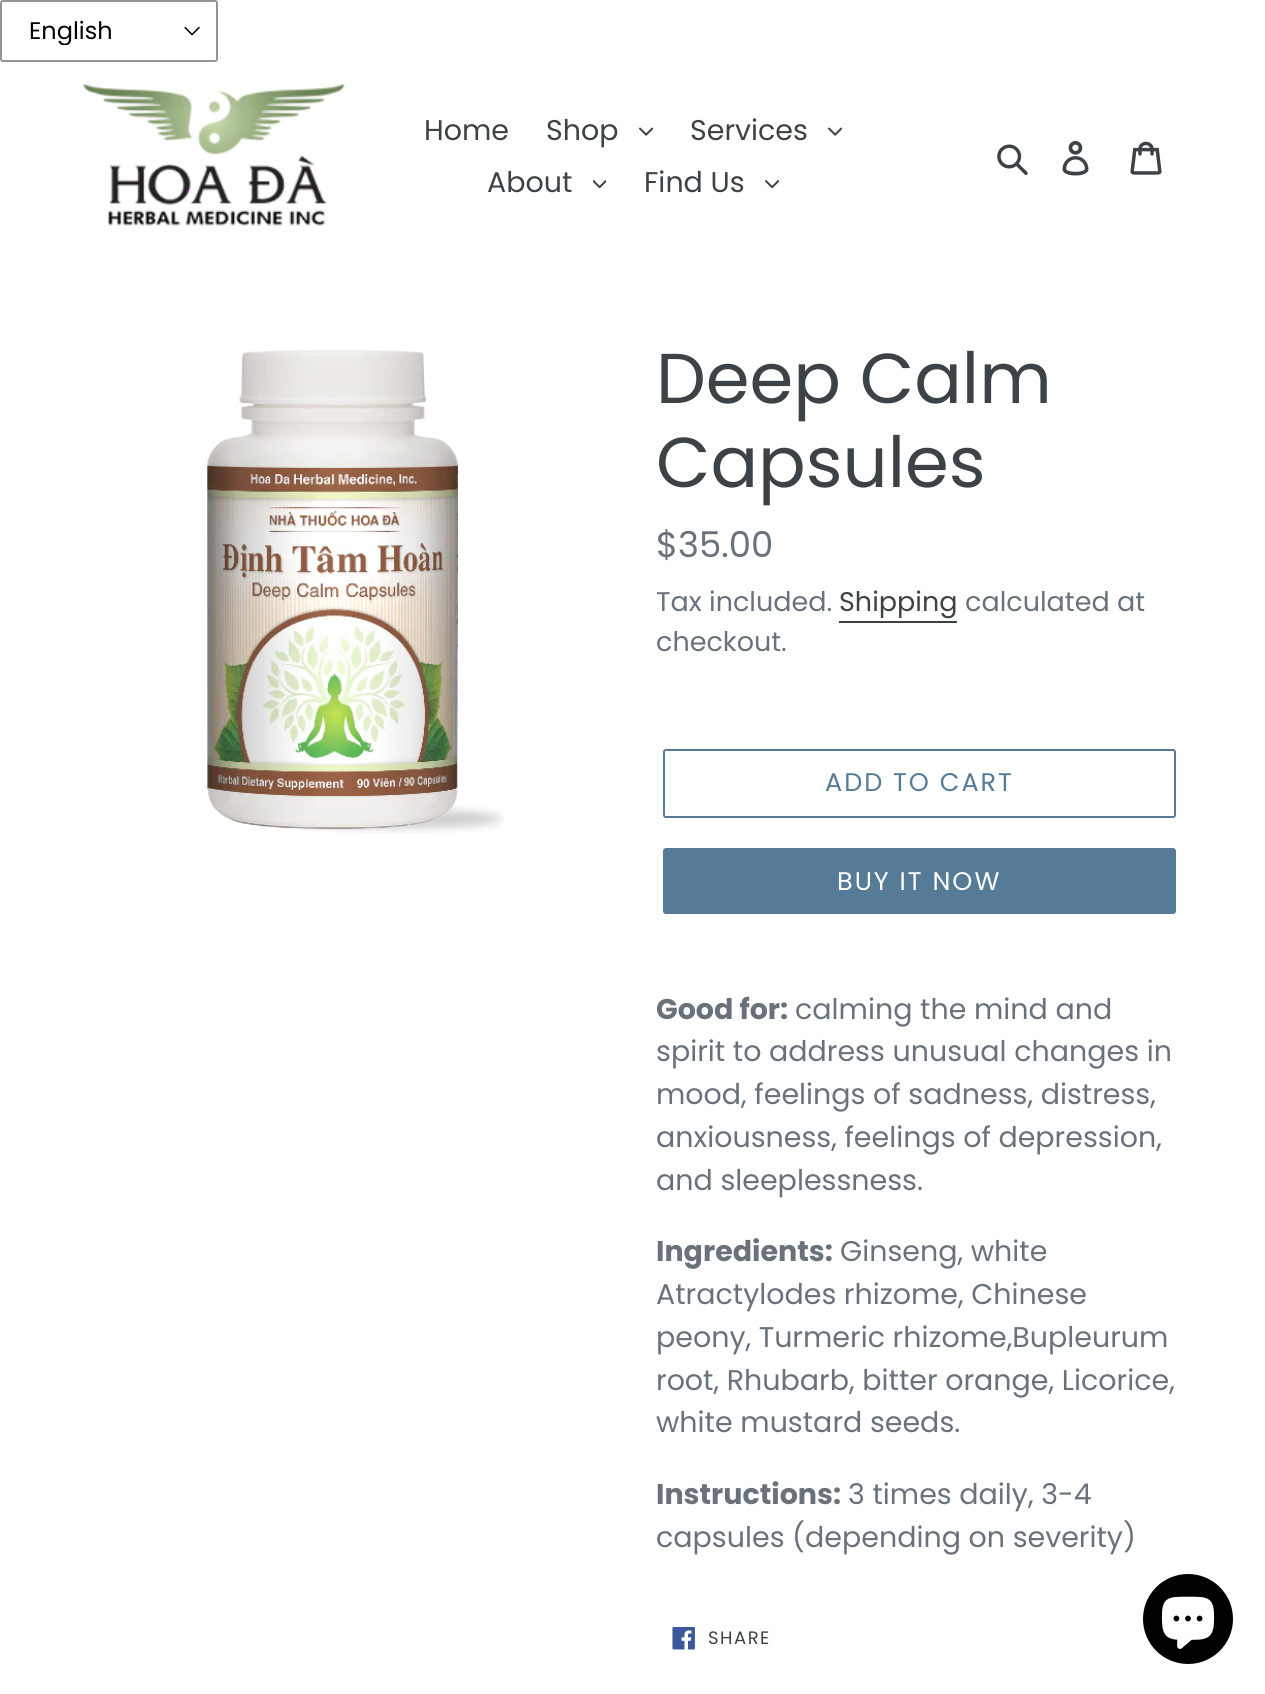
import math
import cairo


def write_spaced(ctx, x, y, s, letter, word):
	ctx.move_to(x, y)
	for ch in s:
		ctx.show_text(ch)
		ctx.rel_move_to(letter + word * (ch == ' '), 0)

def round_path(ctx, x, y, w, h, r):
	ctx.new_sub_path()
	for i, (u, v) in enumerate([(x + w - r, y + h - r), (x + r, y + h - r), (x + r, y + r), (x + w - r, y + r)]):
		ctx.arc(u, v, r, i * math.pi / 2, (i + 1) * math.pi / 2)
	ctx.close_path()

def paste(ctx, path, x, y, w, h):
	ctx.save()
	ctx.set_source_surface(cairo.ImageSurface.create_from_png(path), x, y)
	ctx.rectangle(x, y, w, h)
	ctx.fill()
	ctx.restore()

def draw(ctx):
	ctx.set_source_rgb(1, 1, 1)
	ctx.paint()
	paste(ctx, 'media/1.png', 184, 26, 16, 10)
	round_path(ctx, 1, 1, 216, 60, 2)
	ctx.set_source_rgb(0.58, 0.58, 0.58)
	ctx.stroke()
	ctx.save()
	ctx.rectangle(29, 17, 145, 28)
	ctx.clip()
	ctx.select_font_face('Poppins')
	ctx.set_font_size(24)
	ctx.set_source_rgb(0, 0, 0)
	ctx.move_to(29, 39)
	ctx.show_text('English')
	ctx.restore()
	paste(ctx, 'media/2.png', 82, 84, 263, 142)
	ctx.select_font_face('Poppins')
	ctx.set_font_size(28.5)
	ctx.set_source_rgb(0.239, 0.259, 0.275)
	ctx.move_to(424, 140)
	ctx.show_text('Home')
	ctx.move_to(546, 140)
	ctx.show_text('Shop')
	paste(ctx, 'media/3.png', 639, 127, 14, 9)
	ctx.move_to(690, 140)
	ctx.show_text('Services')
	paste(ctx, 'media/3.png', 828, 127, 14, 9)
	ctx.move_to(487, 192)
	ctx.show_text('About')
	paste(ctx, 'media/4.png', 593, 180, 13, 9)
	ctx.move_to(644, 192)
	ctx.show_text('Find Us')
	paste(ctx, 'media/5.png', 765, 180, 14, 9)
	paste(ctx, 'media/6.png', 997, 144, 31, 31)
	paste(ctx, 'media/7.png', 1062, 141, 27, 35)
	paste(ctx, 'media/8.png', 1130, 141, 32, 34)
	paste(ctx, 'media/9.png', 207, 350, 297, 483)
	ctx.set_font_size(70.5)
	ctx.move_to(656, 403)
	ctx.show_text('Deep Calm')
	ctx.move_to(656, 487)
	ctx.show_text('Capsules')
	ctx.set_font_size(35.5)
	ctx.set_source_rgb(0.412, 0.447, 0.482)
	ctx.move_to(656, 557)
	ctx.show_text('$35.00')
	ctx.set_font_size(27)
	ctx.move_to(656, 611)
	ctx.show_text('Tax included.')
	ctx.set_source_rgb(0.239, 0.259, 0.275)
	ctx.move_to(839, 611)
	ctx.show_text('Shipping')
	ctx.rectangle(839, 621, 118, 2)
	ctx.fill()
	ctx.set_source_rgb(0.412, 0.447, 0.482)
	ctx.move_to(965, 611)
	ctx.show_text('calculated at')
	ctx.move_to(656, 651)
	ctx.show_text('checkout.')
	round_path(ctx, 664, 750, 511, 67, 2)
	ctx.set_source_rgb(0.333, 0.482, 0.592)
	ctx.stroke()
	ctx.set_font_size(25.5)
	write_spaced(ctx, 825, 791, 'ADD TO CART', 2, 0)
	round_path(ctx, 663, 848, 513, 66, 3)
	ctx.fill()
	ctx.set_source_rgb(1, 1, 1)
	write_spaced(ctx, 837, 890, 'BUY IT NOW', 2, 0)
	ctx.select_font_face('Poppins', cairo.FONT_SLANT_NORMAL, cairo.FONT_WEIGHT_BOLD)
	ctx.set_font_size(28.5)
	ctx.set_source_rgb(0.412, 0.447, 0.482)
	ctx.move_to(656, 1019)
	ctx.show_text('Good for:')
	ctx.select_font_face('Poppins')
	for x, y, s in [
		(795, 1019, 'calming the mind and'),
		(656, 1061, 'spirit to address unusual changes in'),
		(656, 1104, 'mood, feelings of sadness, distress,'),
		(656, 1147, 'anxiousness, feelings of depression,'),
		(656, 1190, 'and sleeplessness.'),
	]:
		ctx.move_to(x, y)
		ctx.show_text(s)
	ctx.select_font_face('Poppins', cairo.FONT_SLANT_NORMAL, cairo.FONT_WEIGHT_BOLD)
	ctx.move_to(656, 1261)
	ctx.show_text('Ingredients:')
	ctx.select_font_face('Poppins')
	for x, y, s in [
		(840, 1261, 'Ginseng, white'),
		(656, 1304, 'Atractylodes rhizome, Chinese'),
		(656, 1347, 'peony, Turmeric rhizome,Bupleurum'),
		(656, 1390, 'root, Rhubarb, bitter orange, Licorice,'),
		(656, 1432, 'white mustard seeds.'),
	]:
		ctx.move_to(x, y)
		ctx.show_text(s)
	ctx.select_font_face('Poppins', cairo.FONT_SLANT_NORMAL, cairo.FONT_WEIGHT_BOLD)
	ctx.move_to(656, 1504)
	ctx.show_text('Instructions:')
	ctx.select_font_face('Poppins')
	ctx.move_to(848, 1504)
	ctx.show_text('3 times daily, 3-4')
	ctx.move_to(656, 1547)
	ctx.show_text('capsules (depending on severity)')
	paste(ctx, 'media/10.png', 672, 1627, 23, 23)
	ctx.set_font_size(18)
	ctx.set_source_rgb(0.239, 0.259, 0.275)
	write_spaced(ctx, 708, 1644, 'SHARE', 1.5, 0)
	ctx.set_source_rgb(0, 0, 0)
	ctx.new_path()
	ctx.arc(1188, 1619, 45, 0, 2 * math.pi)
	ctx.fill()
	paste(ctx, 'media/11.png', 1161, 1596, 54, 53)


surface = cairo.ImageSurface(cairo.FORMAT_RGB24, 1265, 1694)
ctx = cairo.Context(surface)
options = cairo.FontOptions()
options.set_hint_metrics(cairo.HINT_METRICS_OFF)
options.set_hint_style(cairo.HINT_STYLE_NONE)
ctx.set_font_options(options)
ctx.set_miter_limit(4)
draw(ctx)
surface.write_to_png('image.png')
